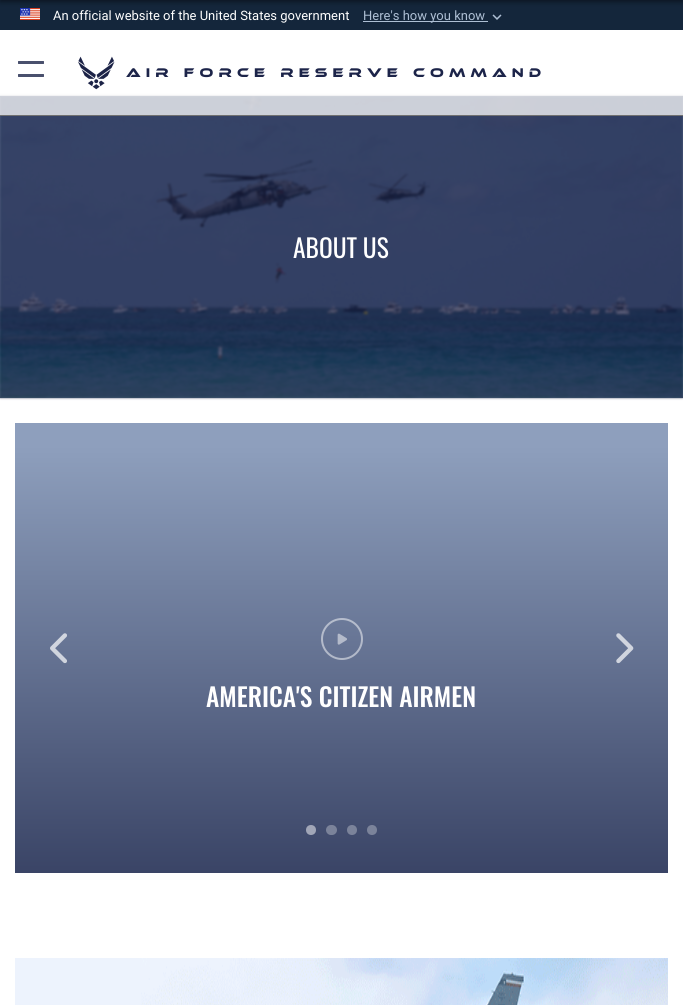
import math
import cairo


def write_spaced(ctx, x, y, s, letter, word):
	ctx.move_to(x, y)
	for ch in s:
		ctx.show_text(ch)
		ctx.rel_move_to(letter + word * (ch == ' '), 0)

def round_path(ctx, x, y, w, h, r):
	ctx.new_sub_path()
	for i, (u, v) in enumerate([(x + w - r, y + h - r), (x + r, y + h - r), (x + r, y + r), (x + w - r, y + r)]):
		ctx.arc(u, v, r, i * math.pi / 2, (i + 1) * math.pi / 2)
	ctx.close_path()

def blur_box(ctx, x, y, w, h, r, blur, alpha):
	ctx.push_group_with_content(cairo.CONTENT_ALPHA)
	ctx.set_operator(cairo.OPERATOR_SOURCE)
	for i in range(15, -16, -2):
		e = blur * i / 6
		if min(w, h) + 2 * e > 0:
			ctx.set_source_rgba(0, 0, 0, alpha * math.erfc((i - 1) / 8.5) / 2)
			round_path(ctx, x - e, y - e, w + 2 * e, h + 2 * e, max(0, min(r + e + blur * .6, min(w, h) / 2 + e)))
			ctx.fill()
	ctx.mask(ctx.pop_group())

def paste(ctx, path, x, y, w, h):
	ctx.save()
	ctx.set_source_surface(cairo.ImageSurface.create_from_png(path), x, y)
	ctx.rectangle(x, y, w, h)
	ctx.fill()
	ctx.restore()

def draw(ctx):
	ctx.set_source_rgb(1, 1, 1)
	ctx.paint()
	ctx.set_source_rgb(0.082, 0.149, 0.231)
	ctx.rectangle(0, 0, 683, 30)
	ctx.fill()
	paste(ctx, 'media/1.png', 20, 8, 20, 12)
	ctx.select_font_face('Roboto')
	ctx.set_font_size(13)
	ctx.set_source_rgb(1, 1, 1)
	ctx.move_to(53, 20)
	ctx.show_text('An official website of the United States government')
	ctx.set_source_rgb(0.682, 0.749, 0.831)
	ctx.rectangle(363, 21, 125, 1)
	ctx.fill()
	ctx.move_to(363, 20)
	ctx.show_text('Here\'s how you know')
	paste(ctx, 'media/2.png', 492, 14, 10, 6)
	ctx.set_source_rgb(0.008, 0.016, 0.024)
	blur_box(ctx, 0, -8, 683, 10, 0, 2.5, 0.5)
	ctx.set_source_rgb(0.29, 0.31, 0.424)
	ctx.rectangle(0, 96, 683, 302)
	ctx.fill()
	paste(ctx, 'media/4.png', 0, 96, 683, 302)
	ctx.set_source_rgb(0.11, 0.137, 0.278)
	blur_box(ctx, 0, 96, 683, 302, 0, 1, 0.7)
	ctx.set_source_rgba(1, 1, 1, 0.75)
	ctx.rectangle(0, 94, 683, 21)
	ctx.fill()
	ctx.set_source_rgb(0.439, 0.439, 0.439)
	ctx.rectangle(0, 115, 683, 1)
	ctx.fill()
	ctx.set_source_rgb(0.286, 0.314, 0.427)
	round_path(ctx, 18, 61, 26, 3, 0.5)
	ctx.fill()
	round_path(ctx, 18, 74, 26, 3, 0.5)
	ctx.fill()
	paste(ctx, 'media/3.png', 78, 56, 37, 34)
	ctx.select_font_face('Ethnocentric')
	ctx.set_source_rgb(0.11, 0.141, 0.286)
	write_spaced(ctx, 126, 77, 'Air Force Reserve Command', 5.1, 0)
	ctx.select_font_face('Oswald')
	ctx.set_font_size(25.5)
	ctx.set_source_rgb(1, 1, 1)
	ctx.move_to(293, 258)
	ctx.show_text('ABOUT US')
	gradient = cairo.LinearGradient(342, 423, 342, 873)
	gradient.add_color_stop_rgba(0.05, 0.557, 0.624, 0.741, 1)
	gradient.add_color_stop_rgba(1, 0.227, 0.267, 0.4, 1)
	ctx.set_source(gradient)
	ctx.rectangle(15, 423, 653, 450)
	ctx.fill()
	paste(ctx, 'media/5.png', 50, 633, 17, 31)
	paste(ctx, 'media/6.png', 616, 633, 18, 31)
	ctx.arc(342, 639, 20, 0, 2 * math.pi)
	ctx.set_source_rgba(1, 1, 1, 0.5)
	ctx.stroke()
	paste(ctx, 'media/7.png', 337, 633, 10, 12)
	ctx.select_font_face('Oswald Medium')
	ctx.set_source_rgb(1, 1, 1)
	ctx.move_to(206, 707)
	ctx.show_text('AMERICA\'S CITIZEN AIRMEN')
	ctx.set_source_rgb(0.631, 0.651, 0.718)
	ctx.new_path()
	ctx.arc(311, 830, 5, 0, 2 * math.pi)
	ctx.fill()
	ctx.set_source_rgb(0.482, 0.514, 0.604)
	round_path(ctx, 326, 825, 11, 10, 5)
	ctx.fill()
	ctx.arc(352, 830, 5, 0, 2 * math.pi)
	ctx.fill()
	ctx.arc(372, 830, 5, 0, 2 * math.pi)
	ctx.fill()
	paste(ctx, 'media/8.png', 15, 958, 653, 47)


surface = cairo.ImageSurface(cairo.FORMAT_RGB24, 683, 1005)
ctx = cairo.Context(surface)
options = cairo.FontOptions()
options.set_hint_metrics(cairo.HINT_METRICS_OFF)
options.set_hint_style(cairo.HINT_STYLE_NONE)
ctx.set_font_options(options)
ctx.set_miter_limit(4)
draw(ctx)
surface.write_to_png('image.png')
